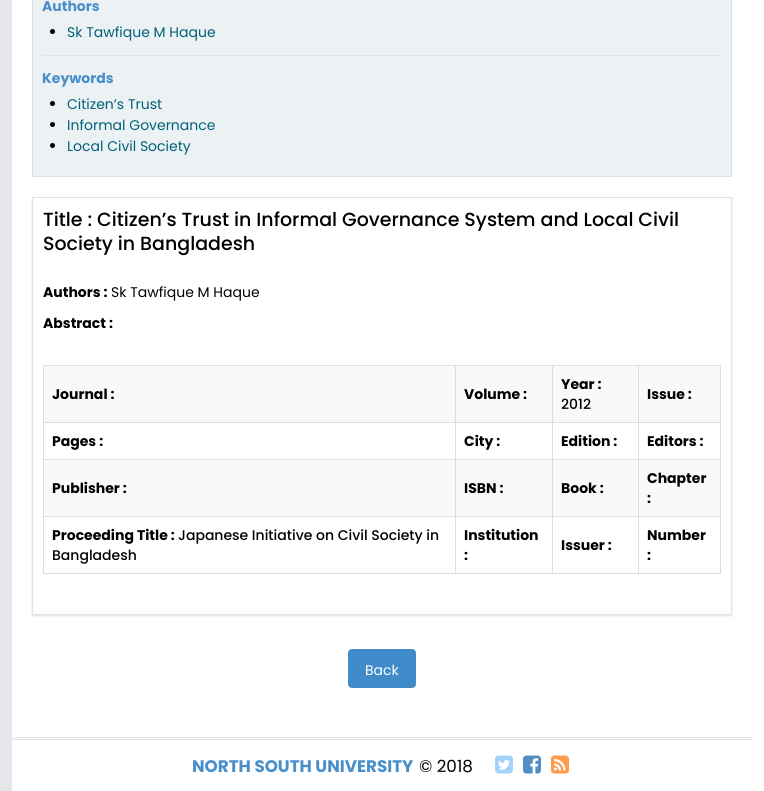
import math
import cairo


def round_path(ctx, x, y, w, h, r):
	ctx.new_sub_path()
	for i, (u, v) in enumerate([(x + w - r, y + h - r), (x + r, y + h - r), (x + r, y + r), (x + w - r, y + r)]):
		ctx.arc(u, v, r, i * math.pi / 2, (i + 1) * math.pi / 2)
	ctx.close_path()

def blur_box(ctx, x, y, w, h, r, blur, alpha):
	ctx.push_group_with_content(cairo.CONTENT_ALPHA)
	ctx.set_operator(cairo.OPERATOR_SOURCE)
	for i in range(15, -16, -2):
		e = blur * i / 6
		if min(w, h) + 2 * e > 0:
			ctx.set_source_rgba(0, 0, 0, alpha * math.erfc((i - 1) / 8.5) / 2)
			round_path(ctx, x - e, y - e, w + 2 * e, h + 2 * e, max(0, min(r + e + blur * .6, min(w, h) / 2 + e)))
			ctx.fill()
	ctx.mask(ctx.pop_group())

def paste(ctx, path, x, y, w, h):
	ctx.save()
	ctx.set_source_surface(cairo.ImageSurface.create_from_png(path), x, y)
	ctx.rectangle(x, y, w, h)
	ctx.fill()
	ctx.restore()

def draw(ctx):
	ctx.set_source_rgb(0.894, 0.902, 0.914)
	ctx.paint()
	ctx.set_source_rgb(1, 1, 1)
	ctx.rectangle(12, 0, 752, 791)
	ctx.fill()
	ctx.set_source_rgb(0.925, 0.945, 0.957)
	ctx.rectangle(32.5, -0.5, 699, 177)
	ctx.fill_preserve()
	ctx.set_source_rgb(0.839, 0.882, 0.918)
	ctx.set_line_width(1)
	ctx.stroke()
	ctx.select_font_face('Poppins', cairo.FONT_SLANT_NORMAL, cairo.FONT_WEIGHT_BOLD)
	ctx.set_font_size(14)
	ctx.set_source_rgb(0.278, 0.561, 0.792)
	ctx.move_to(42, 11)
	ctx.show_text('Authors')
	ctx.set_source_rgb(0, 0, 0)
	ctx.new_path()
	ctx.arc(52.5, 31.5, 2.5, 0, 2 * math.pi)
	ctx.fill()
	ctx.select_font_face('Poppins')
	ctx.set_source_rgb(0, 0.38, 0.475)
	ctx.move_to(67, 37)
	ctx.show_text('Sk Tawfique M Haque')
	ctx.new_path()
	ctx.move_to(42, 55.5)
	ctx.line_to(722, 55.5)
	ctx.set_source_rgb(0.824, 0.839, 0.851)
	ctx.set_dash([1, 1])
	ctx.stroke()
	ctx.select_font_face('Poppins', cairo.FONT_SLANT_NORMAL, cairo.FONT_WEIGHT_BOLD)
	ctx.set_source_rgb(0.278, 0.561, 0.792)
	ctx.move_to(42, 83)
	ctx.show_text('Keywords')
	ctx.set_source_rgb(0, 0, 0)
	ctx.new_path()
	ctx.arc(52.5, 103.5, 2.5, 0, 2 * math.pi)
	ctx.fill()
	ctx.select_font_face('Poppins')
	ctx.set_source_rgb(0, 0.38, 0.475)
	ctx.move_to(67, 109)
	ctx.show_text('Citizen’s Trust')
	ctx.set_source_rgb(0, 0, 0)
	ctx.new_path()
	ctx.arc(52.5, 124.5, 2.5, 0, 2 * math.pi)
	ctx.fill()
	ctx.set_source_rgb(0, 0.38, 0.475)
	ctx.move_to(67, 130)
	ctx.show_text('Informal Governance')
	ctx.set_source_rgb(0, 0, 0)
	ctx.new_path()
	ctx.arc(52.5, 145.5, 2.5, 0, 2 * math.pi)
	ctx.fill()
	ctx.set_source_rgb(0, 0.38, 0.475)
	ctx.move_to(67, 151)
	ctx.show_text('Local Civil Society')
	ctx.save()
	ctx.set_fill_rule(cairo.FILL_RULE_EVEN_ODD)
	ctx.new_path()
	ctx.move_to(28, 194)
	ctx.line_to(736, 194)
	ctx.line_to(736, 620)
	ctx.line_to(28, 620)
	ctx.close_path()
	ctx.move_to(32, 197)
	ctx.line_to(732, 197)
	ctx.line_to(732, 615)
	ctx.line_to(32, 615)
	ctx.close_path()
	ctx.clip()
	ctx.set_source_rgb(0.882, 0.882, 0.882)
	blur_box(ctx, 32, 198, 700, 418, 0, 1, 1)
	ctx.restore()
	ctx.rectangle(32.5, 197.5, 699, 417)
	ctx.set_source_rgb(0.882, 0.882, 0.882)
	ctx.set_dash([])
	ctx.stroke()
	ctx.select_font_face('Poppins Medium')
	ctx.set_font_size(19)
	ctx.set_source_rgb(0, 0, 0)
	ctx.move_to(43, 226)
	ctx.show_text('Title : Citizen’s Trust in Informal Governance System and Local Civil')
	ctx.move_to(43, 250)
	ctx.show_text('Society in Bangladesh')
	ctx.select_font_face('Poppins', cairo.FONT_SLANT_NORMAL, cairo.FONT_WEIGHT_BOLD)
	ctx.set_font_size(14)
	ctx.move_to(43, 297)
	ctx.show_text('Authors :')
	ctx.select_font_face('Poppins')
	ctx.move_to(111, 297)
	ctx.show_text('Sk Tawfique M Haque')
	ctx.select_font_face('Poppins', cairo.FONT_SLANT_NORMAL, cairo.FONT_WEIGHT_BOLD)
	ctx.move_to(43, 328)
	ctx.show_text('Abstract :')
	ctx.set_source_rgb(0.867, 0.867, 0.867)
	ctx.rectangle(43, 365, 678, 1)
	ctx.rectangle(720, 365, 1, 209)
	ctx.rectangle(43, 573, 678, 1)
	ctx.rectangle(43, 365, 1, 209)
	ctx.fill()
	ctx.set_source_rgb(0.976, 0.976, 0.976)
	ctx.rectangle(44, 366, 676, 56)
	ctx.fill()
	ctx.set_source_rgb(0, 0, 0)
	ctx.move_to(52, 399)
	ctx.show_text('Journal :')
	ctx.set_source_rgb(0.867, 0.867, 0.867)
	ctx.rectangle(638, 422, 83, 1)
	ctx.rectangle(638, 459, 83, 1)
	ctx.fill()
	ctx.set_source_rgb(0.976, 0.976, 0.976)
	ctx.rectangle(44, 460, 676, 56)
	ctx.fill()
	ctx.set_source_rgb(0.867, 0.867, 0.867)
	ctx.rectangle(638, 516, 83, 1)
	ctx.rectangle(638, 516, 1, 58)
	ctx.rectangle(552, 516, 87, 1)
	ctx.rectangle(638, 459, 1, 58)
	ctx.rectangle(552, 459, 87, 1)
	ctx.rectangle(638, 422, 1, 38)
	ctx.rectangle(552, 422, 87, 1)
	ctx.rectangle(552, 516, 1, 58)
	ctx.rectangle(455, 516, 98, 1)
	ctx.rectangle(552, 459, 1, 58)
	ctx.rectangle(455, 459, 98, 1)
	ctx.rectangle(552, 422, 1, 38)
	ctx.rectangle(455, 422, 98, 1)
	ctx.rectangle(455, 516, 1, 58)
	ctx.rectangle(43, 516, 413, 1)
	ctx.rectangle(455, 459, 1, 58)
	ctx.rectangle(43, 459, 413, 1)
	ctx.rectangle(455, 422, 1, 38)
	ctx.rectangle(43, 422, 413, 1)
	ctx.rectangle(455, 365, 1, 58)
	ctx.fill()
	ctx.set_source_rgb(0, 0, 0)
	ctx.move_to(464, 399)
	ctx.show_text('Volume :')
	ctx.set_source_rgb(0.867, 0.867, 0.867)
	ctx.rectangle(552, 365, 1, 58)
	ctx.fill()
	ctx.set_source_rgb(0, 0, 0)
	ctx.move_to(561, 389)
	ctx.show_text('Year :')
	ctx.select_font_face('Poppins Medium')
	ctx.move_to(561, 409)
	ctx.show_text('2012')
	ctx.set_source_rgb(0.867, 0.867, 0.867)
	ctx.rectangle(638, 365, 1, 58)
	ctx.fill()
	ctx.select_font_face('Poppins', cairo.FONT_SLANT_NORMAL, cairo.FONT_WEIGHT_BOLD)
	ctx.set_source_rgb(0, 0, 0)
	for x, y, s in [
		(647, 399, 'Issue :'),
		(52, 446, 'Pages :'),
		(464, 446, 'City :'),
		(561, 446, 'Edition :'),
		(647, 446, 'Editors :'),
		(52, 493, 'Publisher :'),
		(464, 493, 'ISBN :'),
		(561, 493, 'Book :'),
		(647, 483, 'Chapter'),
		(647, 503, ':'),
		(52, 540, 'Proceeding Title :'),
	]:
		ctx.move_to(x, y)
		ctx.show_text(s)
	ctx.select_font_face('Poppins Medium')
	ctx.move_to(178, 540)
	ctx.show_text('Japanese Initiative on Civil Society in')
	ctx.move_to(52, 560)
	ctx.show_text('Bangladesh')
	ctx.select_font_face('Poppins', cairo.FONT_SLANT_NORMAL, cairo.FONT_WEIGHT_BOLD)
	for x, y, s in [
		(464, 540, 'Institution'),
		(464, 560, ':'),
		(561, 550, 'Issuer :'),
		(647, 540, 'Number'),
		(647, 560, ':'),
	]:
		ctx.move_to(x, y)
		ctx.show_text(s)
	ctx.set_source_rgb(0.259, 0.545, 0.792)
	ctx.new_path()
	ctx.move_to(353, 654)
	ctx.line_to(411, 654)
	ctx.line_to(411, 686)
	ctx.line_to(353, 686)
	ctx.line_to(353, 684)
	ctx.close_path()
	ctx.fill()
	round_path(ctx, 349, 650, 66, 37, 3)
	ctx.set_line_width(2)
	ctx.stroke()
	ctx.rectangle(350, 651, 64, 3)
	ctx.rectangle(411, 651, 3, 35)
	ctx.rectangle(350, 651, 3, 35)
	ctx.fill()
	ctx.select_font_face('Poppins')
	ctx.set_source_rgb(1, 1, 1)
	ctx.move_to(365, 675)
	ctx.show_text('Back')
	ctx.set_source_rgb(0.898, 0.898, 0.898)
	ctx.rectangle(12, 737, 740, 1)
	ctx.fill()
	ctx.rectangle(12, 739, 740, 1)
	ctx.fill()
	ctx.select_font_face('Poppins', cairo.FONT_SLANT_NORMAL, cairo.FONT_WEIGHT_BOLD)
	ctx.set_font_size(16.75)
	ctx.set_source_rgb(0.278, 0.561, 0.792)
	ctx.move_to(192, 772)
	ctx.show_text('NORTH SOUTH UNIVERSITY')
	ctx.select_font_face('Poppins')
	ctx.set_source_rgb(0, 0, 0)
	ctx.move_to(419, 772)
	ctx.show_text('© 2018')
	paste(ctx, 'media/1.png', 495, 755, 18, 19)
	paste(ctx, 'media/2.png', 523, 755, 18, 19)
	paste(ctx, 'media/3.png', 551, 755, 18, 19)


surface = cairo.ImageSurface(cairo.FORMAT_RGB24, 764, 791)
ctx = cairo.Context(surface)
options = cairo.FontOptions()
options.set_hint_metrics(cairo.HINT_METRICS_OFF)
options.set_hint_style(cairo.HINT_STYLE_NONE)
ctx.set_font_options(options)
ctx.set_miter_limit(4)
draw(ctx)
surface.write_to_png('image.png')
